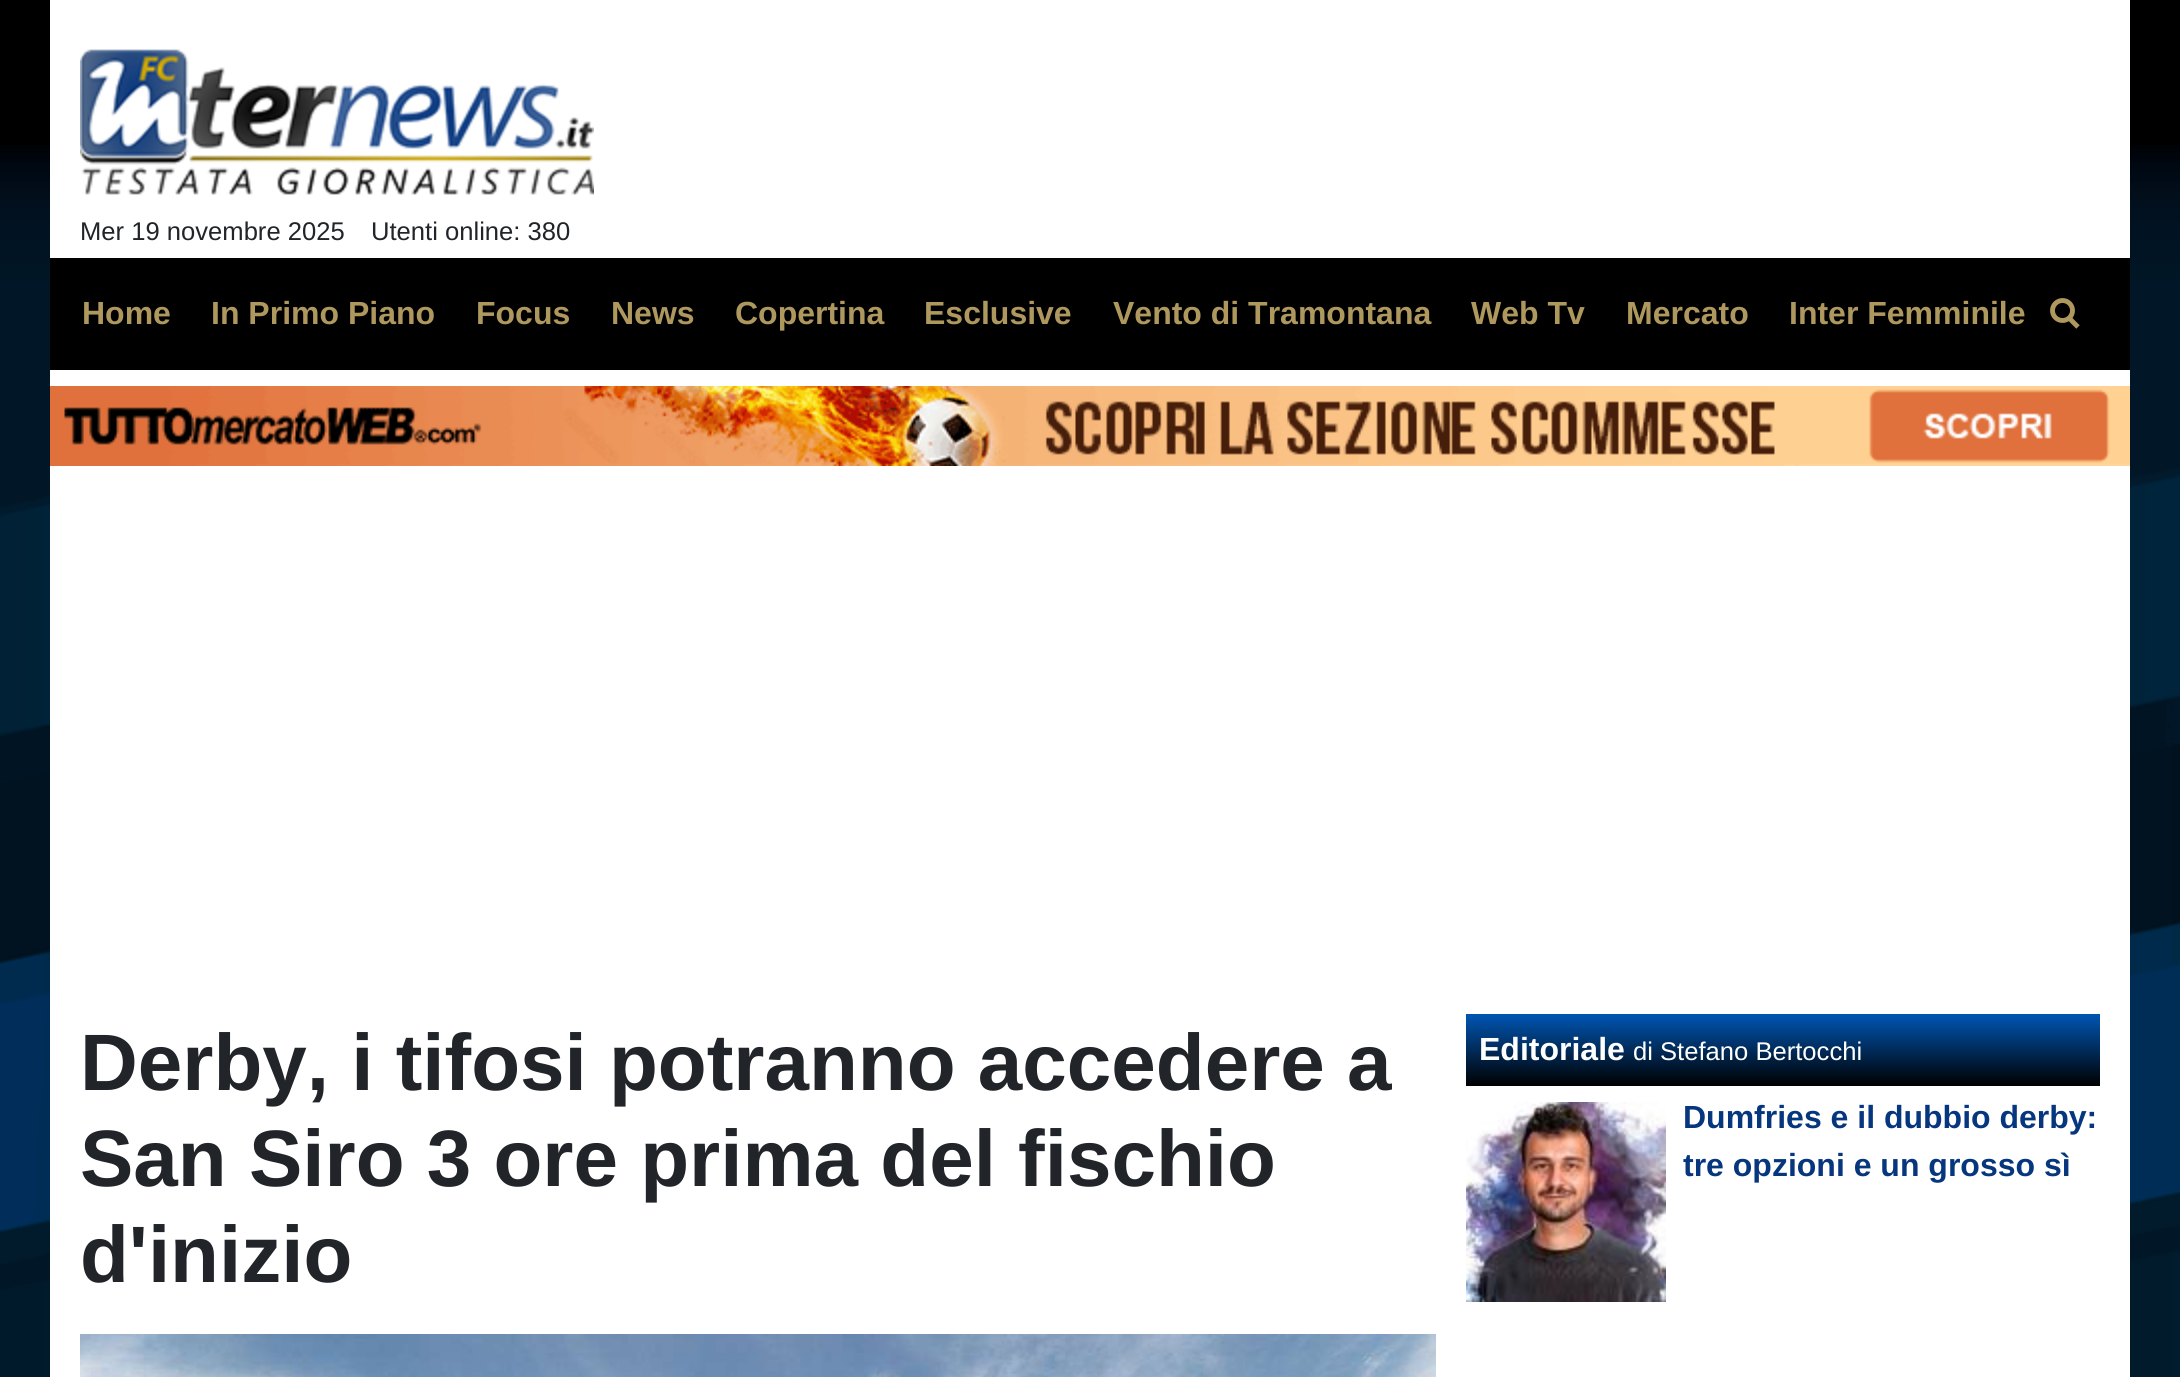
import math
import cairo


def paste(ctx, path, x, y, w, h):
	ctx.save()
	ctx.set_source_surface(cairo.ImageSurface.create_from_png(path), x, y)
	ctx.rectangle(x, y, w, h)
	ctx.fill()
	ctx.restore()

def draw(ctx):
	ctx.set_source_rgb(0, 0, 0)
	ctx.paint()
	paste(ctx, 'media/1.png', 0, 145, 2180, 1232)
	ctx.set_source_rgb(1, 1, 1)
	ctx.rectangle(50, 0, 2080, 1377)
	ctx.fill()
	paste(ctx, 'media/2.png', 80, 49, 514, 146)
	ctx.select_font_face('Liberation Sans')
	ctx.set_font_size(25.6)
	ctx.set_source_rgb(0.129, 0.145, 0.161)
	ctx.move_to(80, 240)
	ctx.show_text('Mer 19 novembre 2025')
	ctx.move_to(371, 240)
	ctx.show_text('Utenti online: 380')
	ctx.set_source_rgb(0, 0, 0)
	ctx.rectangle(50, 258, 2080, 112)
	ctx.fill()
	ctx.select_font_face('Liberation Sans', cairo.FONT_SLANT_NORMAL, cairo.FONT_WEIGHT_BOLD)
	ctx.set_font_size(32)
	ctx.set_source_rgb(0.682, 0.596, 0.369)
	for x, y, s in [
		(82, 324, 'Home'),
		(211, 324, 'In Primo Piano'),
		(476, 324, 'Focus'),
		(611, 324, 'News'),
		(735, 324, 'Copertina'),
		(924, 324, 'Esclusive'),
		(1113, 324, 'Vento di Tramontana'),
		(1471, 324, 'Web Tv'),
		(1626, 324, 'Mercato'),
		(1789, 324, 'Inter Femminile'),
	]:
		ctx.move_to(x, y)
		ctx.show_text(s)
	ctx.new_path()
	ctx.move_to(2078, 327)
	ctx.line_to(2068, 317)
	ctx.set_line_width(4.9)
	ctx.stroke()
	ctx.arc(2062.5, 310.5, 10, 0, 2 * math.pi)
	ctx.stroke()
	paste(ctx, 'media/3.png', 50, 386, 2080, 80)
	ctx.set_font_size(80)
	ctx.set_source_rgb(0.129, 0.145, 0.161)
	for x, y, s in [
		(80, 1090, 'Derby, i tifosi potranno accedere a'),
		(80, 1186, 'San Siro 3 ore prima del fischio'),
		(80, 1282, 'd\'inizio'),
	]:
		ctx.move_to(x, y)
		ctx.show_text(s)
	paste(ctx, 'media/4.png', 80, 1334, 1356, 43)
	gradient = cairo.LinearGradient(1783, 1014, 1783, 1086)
	gradient.add_color_stop_rgba(0, 0, 0.337, 0.702, 1)
	gradient.add_color_stop_rgba(1, 0, 0, 0, 1)
	ctx.set_source(gradient)
	ctx.rectangle(1466, 1014, 634, 72)
	ctx.fill()
	ctx.set_font_size(32)
	ctx.set_source_rgb(1, 1, 1)
	ctx.move_to(1479, 1060)
	ctx.show_text('Editoriale')
	ctx.select_font_face('Liberation Sans')
	ctx.set_font_size(25.6)
	ctx.move_to(1633, 1060)
	ctx.show_text('di Stefano Bertocchi')
	paste(ctx, 'media/5.png', 1466, 1102, 200, 200)
	ctx.select_font_face('Liberation Sans', cairo.FONT_SLANT_NORMAL, cairo.FONT_WEIGHT_BOLD)
	ctx.set_font_size(32)
	ctx.set_source_rgb(0.024, 0.212, 0.494)
	ctx.move_to(1683, 1128)
	ctx.show_text('Dumfries e il dubbio derby:')
	ctx.move_to(1683, 1176)
	ctx.show_text('tre opzioni e un grosso sì')


surface = cairo.ImageSurface(cairo.FORMAT_RGB24, 2180, 1377)
ctx = cairo.Context(surface)
options = cairo.FontOptions()
options.set_hint_metrics(cairo.HINT_METRICS_OFF)
options.set_hint_style(cairo.HINT_STYLE_NONE)
ctx.set_font_options(options)
ctx.set_miter_limit(4)
draw(ctx)
surface.write_to_png('image.png')
